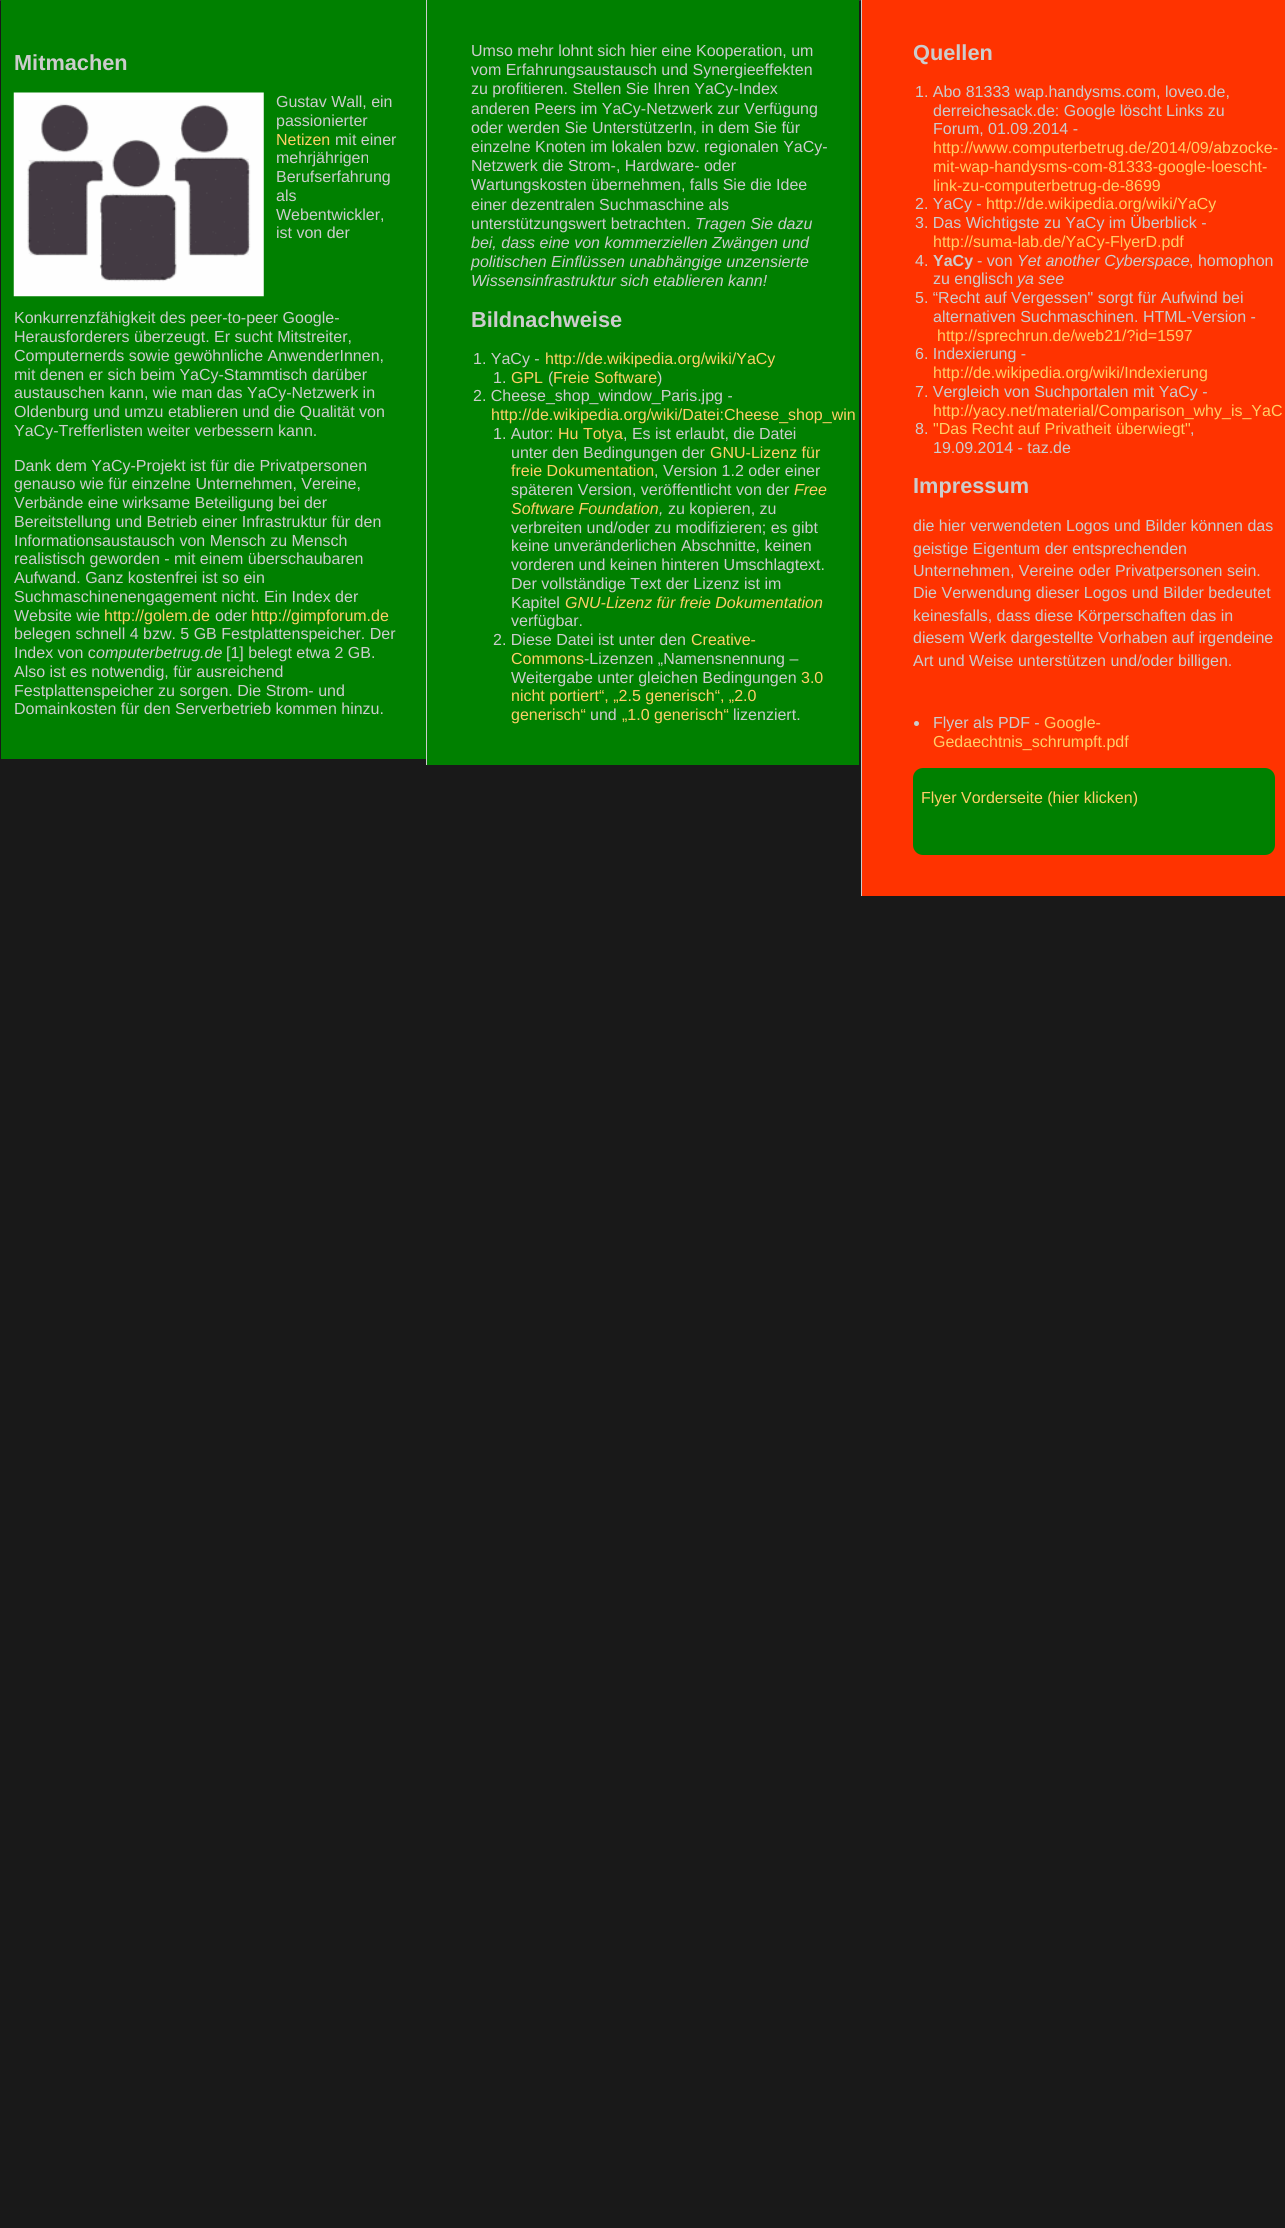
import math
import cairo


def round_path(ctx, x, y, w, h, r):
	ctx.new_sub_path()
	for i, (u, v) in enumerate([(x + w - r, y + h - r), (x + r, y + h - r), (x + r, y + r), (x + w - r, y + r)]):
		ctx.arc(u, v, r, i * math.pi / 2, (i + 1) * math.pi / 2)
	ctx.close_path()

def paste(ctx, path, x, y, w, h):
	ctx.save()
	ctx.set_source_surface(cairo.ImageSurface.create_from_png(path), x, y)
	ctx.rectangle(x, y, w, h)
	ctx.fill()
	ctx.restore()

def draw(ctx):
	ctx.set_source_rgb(0.098, 0.098, 0.098)
	ctx.paint()
	ctx.set_source_rgb(0.2, 0.2, 0.2)
	ctx.rectangle(0, 0, 861, 1)
	ctx.fill()
	ctx.set_source_rgb(0, 0.502, 0)
	ctx.rectangle(1, 0, 425, 759)
	ctx.fill()
	ctx.select_font_face('Liberation Sans', cairo.FONT_SLANT_NORMAL, cairo.FONT_WEIGHT_BOLD)
	ctx.set_font_size(21.75)
	ctx.set_source_rgb(0.8, 0.8, 0.8)
	ctx.move_to(14, 70)
	ctx.show_text('Mitmachen')
	paste(ctx, 'media/1.png', 13, 92, 251, 205)
	ctx.select_font_face('Liberation Sans')
	ctx.set_font_size(16)
	ctx.move_to(276, 107)
	ctx.show_text('Gustav Wall, ein')
	ctx.move_to(276, 126)
	ctx.show_text('passionierter')
	ctx.set_source_rgb(1, 0.808, 0.408)
	ctx.move_to(276, 145)
	ctx.show_text('Netizen')
	ctx.set_source_rgb(0.8, 0.8, 0.8)
	for x, y, s in [
		(335, 145, 'mit einer'),
		(276, 163, 'mehrjährigen'),
		(276, 182, 'Berufserfahrung'),
		(276, 201, 'als'),
		(276, 220, 'Webentwickler,'),
		(276, 238, 'ist von der'),
		(14, 323, 'Konkurrenzfähigkeit des peer-to-peer Google-'),
		(14, 342, 'Herausforderers überzeugt. Er sucht Mitstreiter,'),
		(14, 361, 'Computernerds sowie gewöhnliche AnwenderInnen,'),
		(14, 380, 'mit denen er sich beim YaCy-Stammtisch darüber'),
		(14, 398, 'austauschen kann, wie man das YaCy-Netzwerk in'),
		(14, 417, 'Oldenburg und umzu etablieren und die Qualität von'),
		(14, 436, 'YaCy-Trefferlisten weiter verbessern kann.'),
		(14, 471, 'Dank dem YaCy-Projekt ist für die Privatpersonen'),
		(14, 489, 'genauso wie für einzelne Unternehmen, Vereine,'),
		(14, 508, 'Verbände eine wirksame Beteiligung bei der'),
		(14, 527, 'Bereitstellung und Betrieb einer Infrastruktur für den'),
		(14, 546, 'Informationsaustausch von Mensch zu Mensch'),
		(14, 564, 'realistisch geworden - mit einem überschaubaren'),
		(14, 583, 'Aufwand. Ganz kostenfrei ist so ein'),
		(14, 602, 'Suchmaschinenengagement nicht. Ein Index der'),
		(14, 621, 'Website wie'),
	]:
		ctx.move_to(x, y)
		ctx.show_text(s)
	ctx.set_source_rgb(1, 0.808, 0.408)
	ctx.move_to(104, 621)
	ctx.show_text('http://golem.de')
	ctx.set_source_rgb(0.8, 0.8, 0.8)
	ctx.move_to(215, 621)
	ctx.show_text('oder')
	ctx.set_source_rgb(1, 0.808, 0.408)
	ctx.move_to(251, 621)
	ctx.show_text('http://gimpforum.de')
	ctx.set_source_rgb(0.8, 0.8, 0.8)
	ctx.move_to(14, 639)
	ctx.show_text('belegen schnell 4 bzw. 5 GB Festplattenspeicher. Der')
	ctx.move_to(14, 658)
	ctx.show_text('Index von c')
	ctx.select_font_face('Liberation Sans', cairo.FONT_SLANT_ITALIC)
	ctx.move_to(96, 658)
	ctx.show_text('omputerbetrug.de')
	ctx.select_font_face('Liberation Sans')
	for x, y, s in [
		(226, 658, '[1] belegt etwa 2 GB.'),
		(14, 677, 'Also ist es notwendig, für ausreichend'),
		(14, 696, 'Festplattenspeicher zu sorgen. Die Strom- und'),
		(14, 714, 'Domainkosten für den Serverbetrieb kommen hinzu.'),
	]:
		ctx.move_to(x, y)
		ctx.show_text(s)
	ctx.set_source_rgb(0, 0.502, 0)
	ctx.rectangle(427, 0, 432, 765)
	ctx.fill()
	ctx.set_source_rgb(0.8, 0.8, 0.8)
	ctx.rectangle(426, 0, 1, 765)
	ctx.fill()
	for x, y, s in [
		(471, 56, 'Umso mehr lohnt sich hier eine Kooperation, um'),
		(471, 75, 'vom Erfahrungsaustausch und Synergieeffekten'),
		(471, 94, 'zu profitieren. Stellen Sie Ihren YaCy-Index'),
		(471, 114, 'anderen Peers im YaCy-Netzwerk zur Verfügung'),
		(471, 133, 'oder werden Sie UnterstützerIn, in dem Sie für'),
		(471, 152, 'einzelne Knoten im lokalen bzw. regionalen YaCy-'),
		(471, 171, 'Netzwerk die Strom-, Hardware- oder'),
		(471, 190, 'Wartungskosten übernehmen, falls Sie die Idee'),
		(471, 210, 'einer dezentralen Suchmaschine als'),
		(471, 229, 'unterstützungswert betrachten.'),
	]:
		ctx.move_to(x, y)
		ctx.show_text(s)
	ctx.select_font_face('Liberation Sans', cairo.FONT_SLANT_ITALIC)
	for x, y, s in [
		(695, 229, 'Tragen Sie dazu'),
		(471, 248, 'bei, dass eine von kommerziellen Zwängen und'),
		(471, 267, 'politischen Einflüssen unabhängige unzensierte'),
		(471, 286, 'Wissensinfrastruktur sich etablieren kann!'),
	]:
		ctx.move_to(x, y)
		ctx.show_text(s)
	ctx.select_font_face('Liberation Sans', cairo.FONT_SLANT_NORMAL, cairo.FONT_WEIGHT_BOLD)
	ctx.set_font_size(21.75)
	ctx.move_to(471, 327)
	ctx.show_text('Bildnachweise')
	ctx.select_font_face('Liberation Sans')
	ctx.set_font_size(16)
	ctx.move_to(473, 364)
	ctx.show_text('1. YaCy -')
	ctx.set_source_rgb(1, 0.808, 0.408)
	ctx.move_to(545, 364)
	ctx.show_text('http://de.wikipedia.org/wiki/YaCy')
	ctx.set_source_rgb(0.8, 0.8, 0.8)
	ctx.move_to(493, 383)
	ctx.show_text('1.')
	ctx.set_source_rgb(1, 0.808, 0.408)
	ctx.move_to(511, 383)
	ctx.show_text('GPL')
	ctx.set_source_rgb(0.8, 0.8, 0.8)
	ctx.move_to(548, 383)
	ctx.show_text('(')
	ctx.set_source_rgb(1, 0.808, 0.408)
	ctx.move_to(553, 383)
	ctx.show_text('Freie Software')
	ctx.set_source_rgb(0.8, 0.8, 0.8)
	ctx.move_to(657, 383)
	ctx.show_text(')')
	ctx.move_to(473, 401)
	ctx.show_text('2. Cheese_shop_window_Paris.jpg -')
	ctx.set_source_rgb(1, 0.808, 0.408)
	ctx.move_to(491, 420)
	ctx.show_text('http://de.wikipedia.org/wiki/Datei:Cheese_shop_win')
	ctx.set_source_rgb(0.8, 0.8, 0.8)
	ctx.move_to(493, 439)
	ctx.show_text('1. Autor:')
	ctx.set_source_rgb(1, 0.808, 0.408)
	ctx.move_to(558, 439)
	ctx.show_text('Hu Totya')
	ctx.set_source_rgb(0.8, 0.8, 0.8)
	ctx.move_to(623, 439)
	ctx.show_text(', Es ist erlaubt, die Datei')
	ctx.move_to(511, 458)
	ctx.show_text('unter den Bedingungen der')
	ctx.set_source_rgb(1, 0.808, 0.408)
	ctx.move_to(710, 458)
	ctx.show_text('GNU-Lizenz für')
	ctx.move_to(511, 476)
	ctx.show_text('freie Dokumentation')
	ctx.set_source_rgb(0.8, 0.8, 0.8)
	ctx.move_to(654, 476)
	ctx.show_text(', Version 1.2 oder einer')
	ctx.move_to(511, 495)
	ctx.show_text('späteren Version, veröffentlicht von der')
	ctx.select_font_face('Liberation Sans', cairo.FONT_SLANT_ITALIC)
	ctx.set_source_rgb(1, 0.808, 0.408)
	ctx.move_to(794, 495)
	ctx.show_text('Free')
	ctx.move_to(511, 514)
	ctx.show_text('Software Foundation')
	ctx.set_source_rgb(0.8, 0.8, 0.8)
	ctx.move_to(659, 514)
	ctx.show_text(',')
	ctx.select_font_face('Liberation Sans')
	for x, y, s in [
		(668, 514, 'zu kopieren, zu'),
		(511, 533, 'verbreiten und/oder zu modifizieren; es gibt'),
		(511, 551, 'keine unveränderlichen Abschnitte, keinen'),
		(511, 570, 'vorderen und keinen hinteren Umschlagtext.'),
		(511, 589, 'Der vollständige Text der Lizenz ist im'),
		(511, 608, 'Kapitel'),
	]:
		ctx.move_to(x, y)
		ctx.show_text(s)
	ctx.select_font_face('Liberation Sans', cairo.FONT_SLANT_ITALIC)
	ctx.set_source_rgb(1, 0.808, 0.408)
	ctx.move_to(565, 608)
	ctx.show_text('GNU-Lizenz für freie Dokumentation')
	ctx.select_font_face('Liberation Sans')
	ctx.set_source_rgb(0.8, 0.8, 0.8)
	ctx.move_to(511, 626)
	ctx.show_text('verfügbar.')
	ctx.move_to(493, 645)
	ctx.show_text('2. Diese Datei ist unter den')
	ctx.set_source_rgb(1, 0.808, 0.408)
	ctx.move_to(691, 645)
	ctx.show_text('Creative-')
	ctx.move_to(511, 664)
	ctx.show_text('Commons')
	ctx.set_source_rgb(0.8, 0.8, 0.8)
	ctx.move_to(584, 664)
	ctx.show_text('-Lizenzen „Namensnennung –')
	ctx.move_to(511, 683)
	ctx.show_text('Weitergabe unter gleichen Bedingungen')
	ctx.set_source_rgb(1, 0.808, 0.408)
	for x, y, s in [
		(801, 683, '3.0'),
		(511, 701, 'nicht portiert“, „2.5 generisch“, „2.0'),
		(511, 720, 'generisch“'),
	]:
		ctx.move_to(x, y)
		ctx.show_text(s)
	ctx.set_source_rgb(0.8, 0.8, 0.8)
	ctx.move_to(590, 720)
	ctx.show_text('und')
	ctx.set_source_rgb(1, 0.808, 0.408)
	ctx.move_to(622, 720)
	ctx.show_text('„1.0 generisch“')
	ctx.set_source_rgb(0.8, 0.8, 0.8)
	ctx.move_to(733, 720)
	ctx.show_text('lizenziert.')
	ctx.set_source_rgb(1, 0.2, 0)
	ctx.rectangle(862, 0, 423, 896)
	ctx.fill()
	ctx.set_source_rgb(0.8, 0.8, 0.8)
	ctx.rectangle(861, 0, 1, 896)
	ctx.fill()
	ctx.select_font_face('Liberation Sans', cairo.FONT_SLANT_NORMAL, cairo.FONT_WEIGHT_BOLD)
	ctx.set_font_size(21.75)
	ctx.move_to(913, 60)
	ctx.show_text('Quellen')
	ctx.select_font_face('Liberation Sans')
	ctx.set_font_size(16)
	for x, y, s in [
		(915, 97, '1. Abo 81333 wap.handysms.com, loveo.de,'),
		(933, 116, 'derreichesack.de: Google löscht Links zu'),
		(933, 134, 'Forum, 01.09.2014 -'),
	]:
		ctx.move_to(x, y)
		ctx.show_text(s)
	ctx.set_source_rgb(1, 0.808, 0.408)
	for x, y, s in [
		(933, 153, 'http://www.computerbetrug.de/2014/09/abzocke-'),
		(933, 172, 'mit-wap-handysms-com-81333-google-loescht-'),
		(933, 191, 'link-zu-computerbetrug-de-8699'),
	]:
		ctx.move_to(x, y)
		ctx.show_text(s)
	ctx.set_source_rgb(0.8, 0.8, 0.8)
	ctx.move_to(915, 209)
	ctx.show_text('2. YaCy -')
	ctx.set_source_rgb(1, 0.808, 0.408)
	ctx.move_to(986, 209)
	ctx.show_text('http://de.wikipedia.org/wiki/YaCy')
	ctx.set_source_rgb(0.8, 0.8, 0.8)
	ctx.move_to(915, 228)
	ctx.show_text('3. Das Wichtigste zu YaCy im Überblick -')
	ctx.set_source_rgb(1, 0.808, 0.408)
	ctx.move_to(933, 247)
	ctx.show_text('http://suma-lab.de/YaCy-FlyerD.pdf')
	ctx.set_source_rgb(0.8, 0.8, 0.8)
	ctx.move_to(915, 266)
	ctx.show_text('4.')
	ctx.select_font_face('Liberation Sans', cairo.FONT_SLANT_NORMAL, cairo.FONT_WEIGHT_BOLD)
	ctx.move_to(933, 266)
	ctx.show_text('YaCy')
	ctx.select_font_face('Liberation Sans')
	ctx.move_to(977, 266)
	ctx.show_text('- von')
	ctx.select_font_face('Liberation Sans', cairo.FONT_SLANT_ITALIC)
	ctx.move_to(1017, 266)
	ctx.show_text('Yet another Cyberspace')
	ctx.select_font_face('Liberation Sans')
	ctx.move_to(1189, 266)
	ctx.show_text(', homophon')
	ctx.move_to(933, 284)
	ctx.show_text('zu englisch')
	ctx.select_font_face('Liberation Sans', cairo.FONT_SLANT_ITALIC)
	ctx.move_to(1017, 284)
	ctx.show_text('ya see')
	ctx.select_font_face('Liberation Sans')
	ctx.move_to(915, 303)
	ctx.show_text('5. “Recht auf Vergessen" sorgt für Aufwind bei')
	ctx.move_to(933, 322)
	ctx.show_text('alternativen Suchmaschinen. HTML-Version -')
	ctx.set_source_rgb(1, 0.808, 0.408)
	ctx.move_to(937, 341)
	ctx.show_text('http://sprechrun.de/web21/?id=1597')
	ctx.set_source_rgb(0.8, 0.8, 0.8)
	ctx.move_to(915, 359)
	ctx.show_text('6. Indexierung -')
	ctx.set_source_rgb(1, 0.808, 0.408)
	ctx.move_to(933, 378)
	ctx.show_text('http://de.wikipedia.org/wiki/Indexierung')
	ctx.set_source_rgb(0.8, 0.8, 0.8)
	ctx.move_to(915, 397)
	ctx.show_text('7. Vergleich von Suchportalen mit YaCy -')
	ctx.set_source_rgb(1, 0.808, 0.408)
	ctx.move_to(933, 416)
	ctx.show_text('http://yacy.net/material/Comparison_why_is_YaC')
	ctx.set_source_rgb(0.8, 0.8, 0.8)
	ctx.move_to(915, 434)
	ctx.show_text('8.')
	ctx.set_source_rgb(1, 0.808, 0.408)
	ctx.move_to(933, 434)
	ctx.show_text('"Das Recht auf Privatheit überwiegt"')
	ctx.set_source_rgb(0.8, 0.8, 0.8)
	ctx.move_to(1190, 434)
	ctx.show_text(',')
	ctx.move_to(933, 453)
	ctx.show_text('19.09.2014 - taz.de')
	ctx.select_font_face('Liberation Sans', cairo.FONT_SLANT_NORMAL, cairo.FONT_WEIGHT_BOLD)
	ctx.set_font_size(21.75)
	ctx.move_to(913, 493)
	ctx.show_text('Impressum')
	ctx.select_font_face('Liberation Sans')
	ctx.set_font_size(16)
	for x, y, s in [
		(913, 531, 'die hier verwendeten Logos und Bilder können das'),
		(913, 554, 'geistige Eigentum der entsprechenden'),
		(913, 576, 'Unternehmen, Vereine oder Privatpersonen sein.'),
		(913, 598, 'Die Verwendung dieser Logos und Bilder bedeutet'),
		(913, 621, 'keinesfalls, dass diese Körperschaften das in'),
		(913, 643, 'diesem Werk dargestellte Vorhaben auf irgendeine'),
		(913, 666, 'Art und Weise unterstützen und/oder billigen.'),
	]:
		ctx.move_to(x, y)
		ctx.show_text(s)
	ctx.new_path()
	ctx.arc(916.5, 723.5, 2.5, 0, 2 * math.pi)
	ctx.fill()
	ctx.move_to(933, 728)
	ctx.show_text('Flyer als PDF -')
	ctx.set_source_rgb(1, 0.808, 0.408)
	ctx.move_to(1044, 728)
	ctx.show_text('Google-')
	ctx.move_to(933, 747)
	ctx.show_text('Gedaechtnis_schrumpft.pdf')
	ctx.set_source_rgb(0, 0.502, 0)
	round_path(ctx, 913, 768, 362, 87, 10)
	ctx.fill()
	ctx.set_source_rgb(1, 0.808, 0.408)
	ctx.move_to(921, 803)
	ctx.show_text('Flyer Vorderseite (hier klicken)')


surface = cairo.ImageSurface(cairo.FORMAT_RGB24, 1285, 2228)
ctx = cairo.Context(surface)
options = cairo.FontOptions()
options.set_hint_metrics(cairo.HINT_METRICS_OFF)
options.set_hint_style(cairo.HINT_STYLE_NONE)
ctx.set_font_options(options)
ctx.set_miter_limit(4)
draw(ctx)
surface.write_to_png('image.png')
